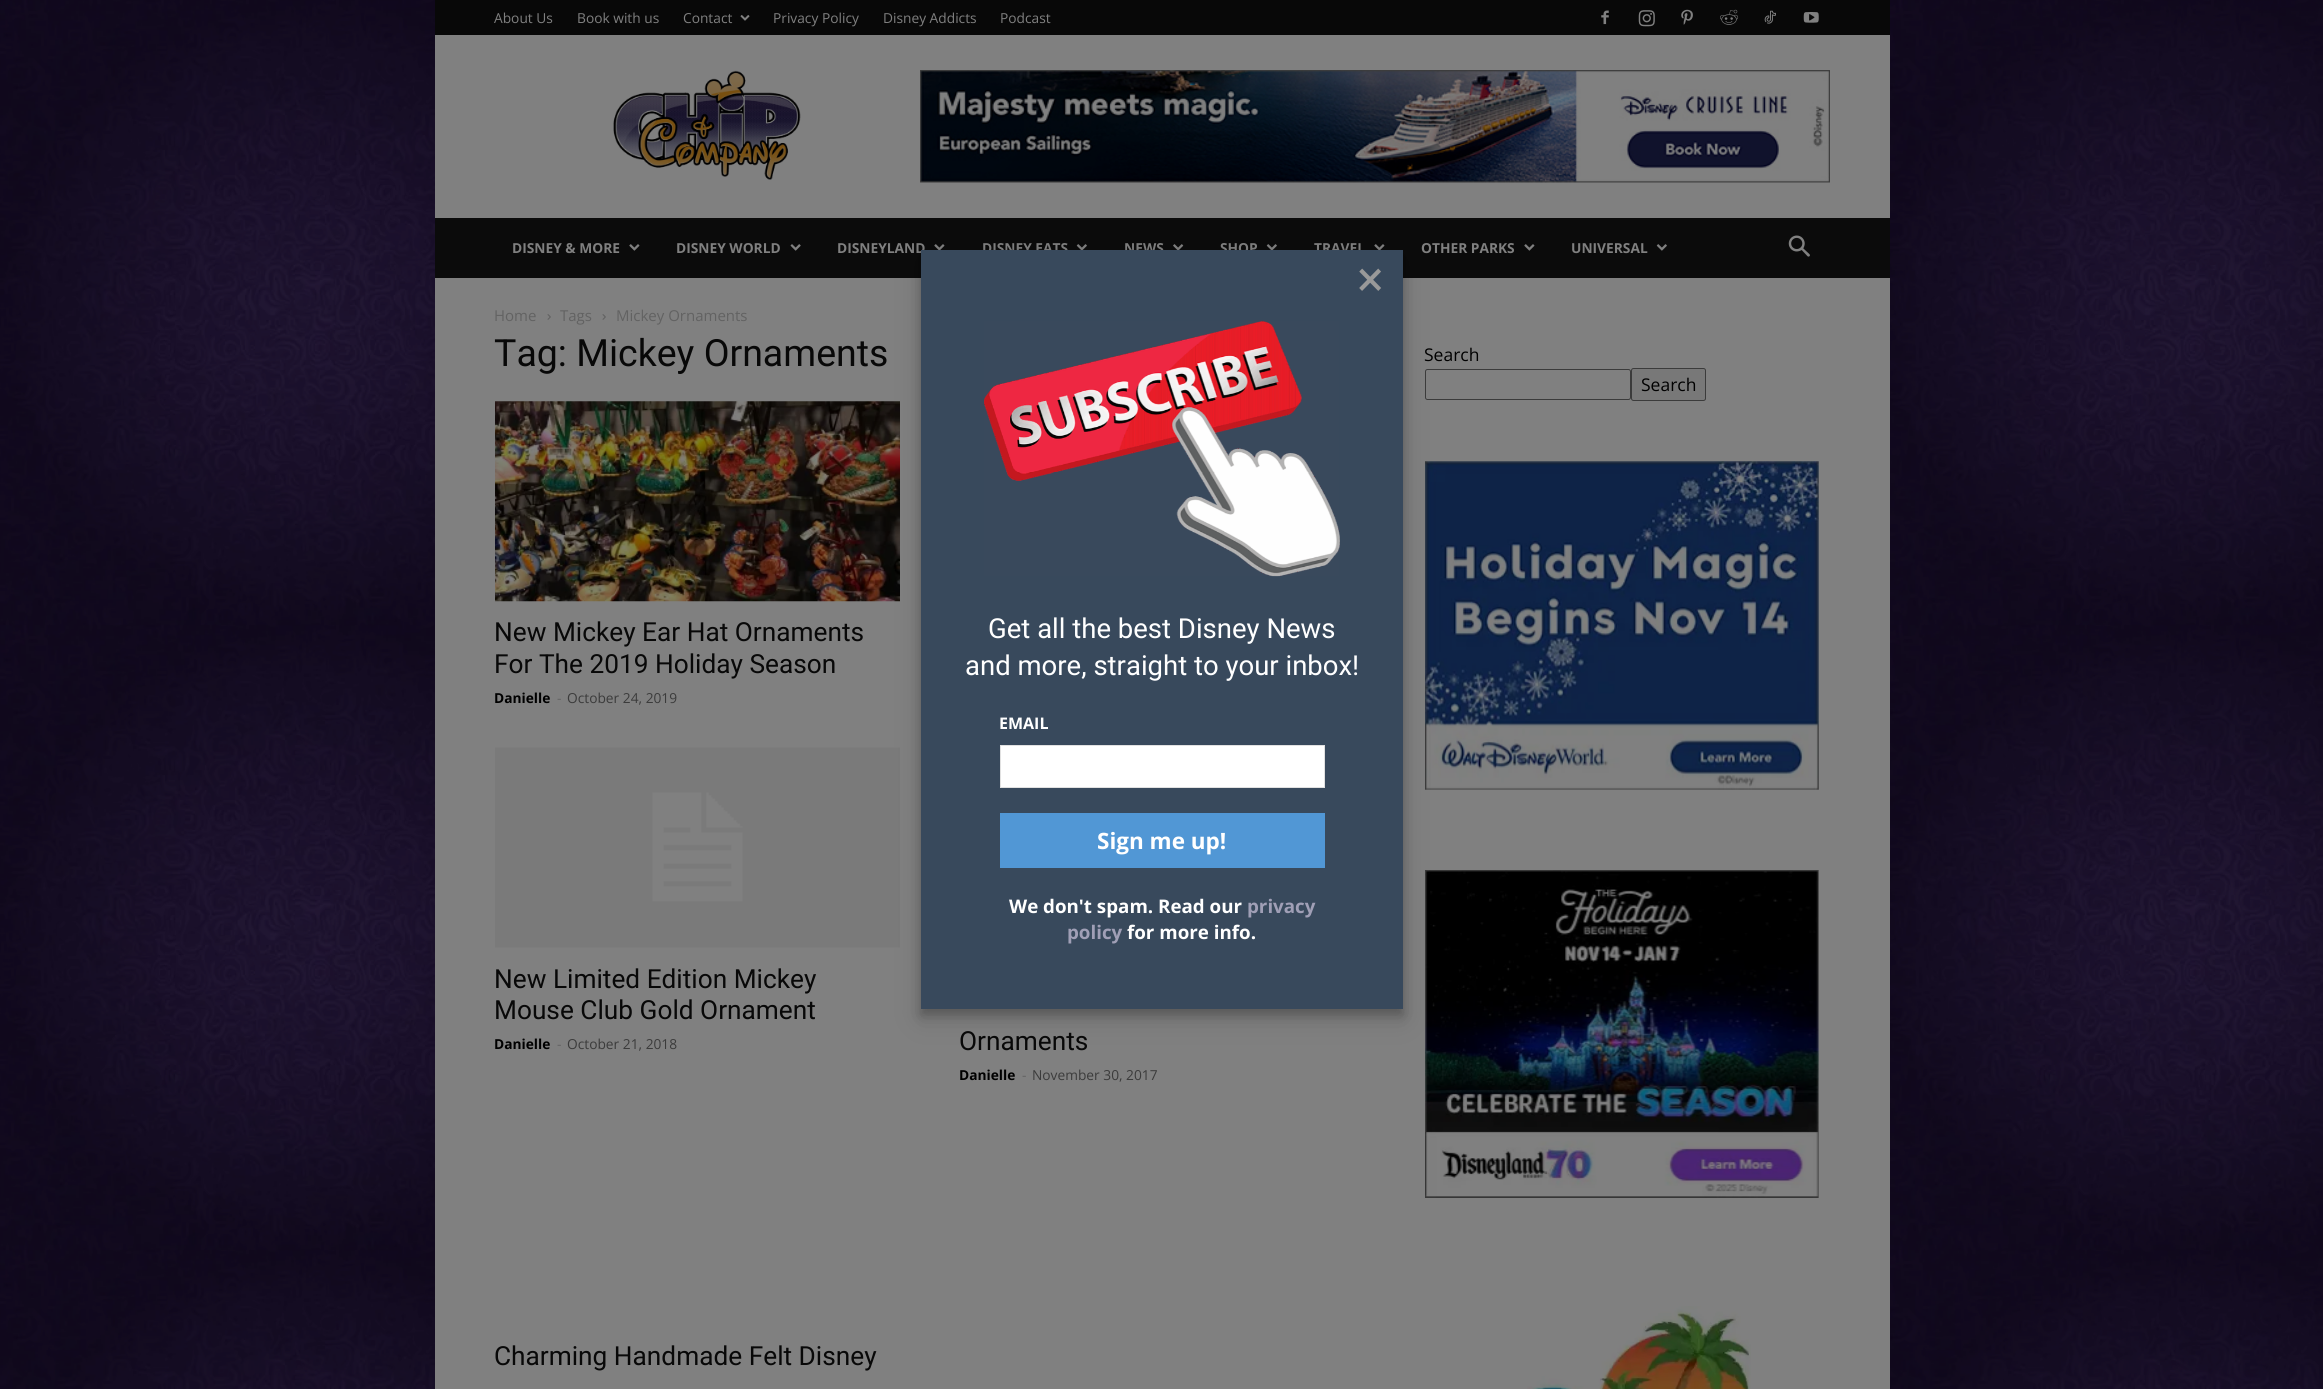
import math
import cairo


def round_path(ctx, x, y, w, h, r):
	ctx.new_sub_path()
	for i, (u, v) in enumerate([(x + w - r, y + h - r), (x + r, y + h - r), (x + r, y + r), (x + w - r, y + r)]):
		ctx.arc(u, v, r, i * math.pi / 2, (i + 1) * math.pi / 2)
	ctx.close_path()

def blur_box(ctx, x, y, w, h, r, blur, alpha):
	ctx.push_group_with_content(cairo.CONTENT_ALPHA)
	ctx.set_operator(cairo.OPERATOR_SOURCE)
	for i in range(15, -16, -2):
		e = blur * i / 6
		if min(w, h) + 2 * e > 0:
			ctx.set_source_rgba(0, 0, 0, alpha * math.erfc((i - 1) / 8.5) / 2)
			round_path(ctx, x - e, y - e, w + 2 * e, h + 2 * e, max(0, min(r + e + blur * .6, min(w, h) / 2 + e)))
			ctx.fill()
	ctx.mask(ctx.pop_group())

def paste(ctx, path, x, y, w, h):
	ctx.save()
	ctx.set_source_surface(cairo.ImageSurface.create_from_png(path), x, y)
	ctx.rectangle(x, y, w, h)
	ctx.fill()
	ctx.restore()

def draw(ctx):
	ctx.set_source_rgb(1, 1, 1)
	ctx.paint()
	paste(ctx, 'media/1.png', 0, 0, 2323, 1389)
	ctx.set_source_rgb(0.035, 0.035, 0.035)
	ctx.rectangle(435, 0, 1455, 35)
	ctx.fill()
	ctx.select_font_face('Open Sans')
	ctx.set_font_size(13.75)
	ctx.set_source_rgb(0.502, 0.502, 0.502)
	for x, y, s in [
		(494, 23, 'About Us'),
		(577, 23, 'Book with us'),
		(683, 23, 'Contact'),
	]:
		ctx.move_to(x, y)
		ctx.show_text(s)
	paste(ctx, 'media/2.png', 740, 15, 10, 6)
	for x, y, s in [
		(773, 23, 'Privacy Policy'),
		(883, 23, 'Disney Addicts'),
		(1000, 23, 'Podcast'),
	]:
		ctx.move_to(x, y)
		ctx.show_text(s)
	paste(ctx, 'media/3.png', 1601, 10, 8, 15)
	paste(ctx, 'media/4.png', 1638, 10, 17, 17)
	paste(ctx, 'media/5.png', 1681, 9, 12, 16)
	paste(ctx, 'media/6.png', 1720, 9, 19, 16)
	paste(ctx, 'media/7.png', 1764, 10, 12, 14)
	paste(ctx, 'media/8.png', 1803, 12, 16, 11)
	ctx.rectangle(435, 35, 1455, 183)
	ctx.fill()
	paste(ctx, 'media/9.png', 613, 70, 188, 110)
	paste(ctx, 'media/10.png', 920, 70, 910, 113)
	ctx.set_source_rgb(0.043, 0.043, 0.043)
	ctx.rectangle(435, 218, 1455, 60)
	ctx.fill()
	ctx.select_font_face('Open Sans', cairo.FONT_SLANT_NORMAL, cairo.FONT_WEIGHT_BOLD)
	ctx.set_source_rgb(0.502, 0.502, 0.502)
	ctx.move_to(512, 253)
	ctx.show_text('DISNEY & MORE')
	paste(ctx, 'media/11.png', 629, 244, 11, 7)
	ctx.move_to(676, 253)
	ctx.show_text('DISNEY WORLD')
	paste(ctx, 'media/12.png', 790, 244, 11, 7)
	ctx.move_to(837, 253)
	ctx.show_text('DISNEYLAND')
	paste(ctx, 'media/13.png', 934, 244, 11, 6)
	ctx.move_to(982, 253)
	ctx.show_text('DISNEY EATS')
	paste(ctx, 'media/14.png', 1076, 244, 11, 6)
	ctx.move_to(1124, 253)
	ctx.show_text('NEWS')
	paste(ctx, 'media/15.png', 1173, 244, 11, 6)
	ctx.move_to(1220, 253)
	ctx.show_text('SHOP')
	paste(ctx, 'media/14.png', 1266, 244, 11, 6)
	ctx.move_to(1314, 253)
	ctx.show_text('TRAVEL')
	paste(ctx, 'media/13.png', 1374, 244, 11, 6)
	ctx.move_to(1421, 253)
	ctx.show_text('OTHER PARKS')
	paste(ctx, 'media/11.png', 1524, 244, 11, 7)
	ctx.move_to(1571, 253)
	ctx.show_text('UNIVERSAL')
	paste(ctx, 'media/16.png', 1656, 244, 11, 7)
	paste(ctx, 'media/17.png', 1788, 235, 22, 22)
	ctx.rectangle(435, 278, 1455, 1111)
	ctx.fill()
	ctx.select_font_face('Open Sans')
	ctx.set_font_size(15)
	ctx.set_source_rgb(0.384, 0.384, 0.384)
	ctx.move_to(494, 321)
	ctx.show_text('Home')
	paste(ctx, 'media/18.png', 547, 314, 4, 6)
	ctx.move_to(560, 321)
	ctx.show_text('Tags')
	paste(ctx, 'media/18.png', 602, 314, 4, 6)
	ctx.move_to(616, 321)
	ctx.show_text('Mickey Ornaments')
	ctx.select_font_face('Roboto')
	ctx.set_font_size(37.5)
	ctx.set_source_rgb(0.035, 0.035, 0.035)
	ctx.move_to(494, 366)
	ctx.show_text('Tag: Mickey Ornaments')
	paste(ctx, 'media/19.png', 495, 401, 405, 201)
	ctx.set_font_size(26.25)
	ctx.move_to(494, 641)
	ctx.show_text('New Mickey Ear Hat Ornaments')
	ctx.move_to(494, 673)
	ctx.show_text('For The 2019 Holiday Season')
	ctx.select_font_face('Open Sans', cairo.FONT_SLANT_NORMAL, cairo.FONT_WEIGHT_BOLD)
	ctx.set_font_size(13.75)
	ctx.set_source_rgb(0, 0, 0)
	ctx.move_to(494, 703)
	ctx.show_text('Danielle')
	ctx.select_font_face('Open Sans')
	ctx.set_source_rgb(0.384, 0.384, 0.384)
	ctx.move_to(557, 703)
	ctx.show_text('-')
	ctx.set_source_rgb(0.231, 0.231, 0.231)
	ctx.move_to(567, 703)
	ctx.show_text('October 24, 2019')
	paste(ctx, 'media/20.png', 495, 747, 405, 201)
	ctx.select_font_face('Roboto')
	ctx.set_font_size(26.25)
	ctx.set_source_rgb(0.035, 0.035, 0.035)
	ctx.move_to(494, 988)
	ctx.show_text('New Limited Edition Mickey')
	ctx.move_to(494, 1019)
	ctx.show_text('Mouse Club Gold Ornament')
	ctx.select_font_face('Open Sans', cairo.FONT_SLANT_NORMAL, cairo.FONT_WEIGHT_BOLD)
	ctx.set_font_size(13.75)
	ctx.set_source_rgb(0, 0, 0)
	ctx.move_to(494, 1049)
	ctx.show_text('Danielle')
	ctx.select_font_face('Open Sans')
	ctx.set_source_rgb(0.384, 0.384, 0.384)
	ctx.move_to(557, 1049)
	ctx.show_text('-')
	ctx.set_source_rgb(0.231, 0.231, 0.231)
	ctx.move_to(567, 1049)
	ctx.show_text('October 21, 2018')
	ctx.select_font_face('Roboto')
	ctx.set_font_size(26.25)
	ctx.set_source_rgb(0.035, 0.035, 0.035)
	ctx.move_to(959, 1050)
	ctx.show_text('Ornaments')
	ctx.select_font_face('Open Sans', cairo.FONT_SLANT_NORMAL, cairo.FONT_WEIGHT_BOLD)
	ctx.set_font_size(13.75)
	ctx.set_source_rgb(0, 0, 0)
	ctx.move_to(959, 1080)
	ctx.show_text('Danielle')
	ctx.select_font_face('Open Sans')
	ctx.set_source_rgb(0.384, 0.384, 0.384)
	ctx.move_to(1022, 1080)
	ctx.show_text('-')
	ctx.set_source_rgb(0.231, 0.231, 0.231)
	ctx.move_to(1032, 1080)
	ctx.show_text('November 30, 2017')
	ctx.select_font_face('Roboto')
	ctx.set_font_size(26.25)
	ctx.set_source_rgb(0.035, 0.035, 0.035)
	ctx.move_to(494, 1365)
	ctx.show_text('Charming Handmade Felt Disney')
	ctx.select_font_face('Open Sans')
	ctx.set_font_size(17.5)
	ctx.set_source_rgb(0, 0, 0)
	ctx.move_to(1424, 361)
	ctx.show_text('Search')
	round_path(ctx, 1425.5, 369.5, 205, 30, 2)
	ctx.set_source_rgb(0.231, 0.231, 0.231)
	ctx.set_line_width(1)
	ctx.stroke()
	ctx.set_source_rgb(0.471, 0.471, 0.471)
	round_path(ctx, 1631.5, 368.5, 74, 32, 2)
	ctx.fill_preserve()
	ctx.set_source_rgb(0.231, 0.231, 0.231)
	ctx.stroke()
	ctx.set_source_rgb(0, 0, 0)
	ctx.move_to(1641, 391)
	ctx.show_text('Search')
	paste(ctx, 'media/21.png', 1425, 461, 394, 329)
	paste(ctx, 'media/22.png', 1425, 870, 394, 328)
	paste(ctx, 'media/23.png', 1527, 1306, 224, 83)
	ctx.set_source_rgb(0, 0, 0)
	blur_box(ctx, 921, 259, 482, 759, 0, 12.5, 0.17)
	blur_box(ctx, 921, 256, 482, 759, 0, 5, 0.2)
	ctx.set_source_rgb(0.22, 0.286, 0.361)
	ctx.rectangle(921, 250, 482, 759)
	ctx.fill()
	ctx.select_font_face('Roboto')
	ctx.set_font_size(50)
	ctx.set_source_rgb(0.6, 0.6, 0.6)
	ctx.move_to(1357, 296)
	ctx.show_text('×')
	paste(ctx, 'media/24.png', 984, 321, 356, 256)
	ctx.set_font_size(27.5)
	ctx.set_source_rgb(1, 1, 1)
	ctx.move_to(988, 638)
	ctx.show_text('Get all the best Disney News')
	ctx.move_to(965, 675)
	ctx.show_text('and more, straight to your inbox!')
	ctx.select_font_face('Open Sans', cairo.FONT_SLANT_NORMAL, cairo.FONT_WEIGHT_BOLD)
	ctx.set_font_size(16)
	ctx.move_to(999, 729)
	ctx.show_text('EMAIL')
	ctx.rectangle(1000.5, 745.5, 324, 42)
	ctx.fill_preserve()
	ctx.set_source_rgb(0.882, 0.882, 0.882)
	ctx.stroke()
	ctx.set_source_rgb(0.318, 0.592, 0.835)
	ctx.rectangle(1000, 813, 325, 55)
	ctx.fill()
	ctx.set_font_size(22.5)
	ctx.set_source_rgb(1, 1, 1)
	ctx.move_to(1097, 849)
	ctx.show_text('Sign me up!')
	ctx.set_font_size(18.75)
	ctx.move_to(1009, 913)
	ctx.show_text('We don\'t spam. Read our')
	ctx.set_source_rgb(0.627, 0.624, 0.714)
	ctx.move_to(1247, 913)
	ctx.show_text('privacy')
	ctx.move_to(1067, 939)
	ctx.show_text('policy')
	ctx.set_source_rgb(1, 1, 1)
	ctx.move_to(1127, 939)
	ctx.show_text('for more info.')


surface = cairo.ImageSurface(cairo.FORMAT_RGB24, 2323, 1389)
ctx = cairo.Context(surface)
options = cairo.FontOptions()
options.set_hint_metrics(cairo.HINT_METRICS_OFF)
options.set_hint_style(cairo.HINT_STYLE_NONE)
ctx.set_font_options(options)
ctx.set_miter_limit(4)
draw(ctx)
surface.write_to_png('image.png')
